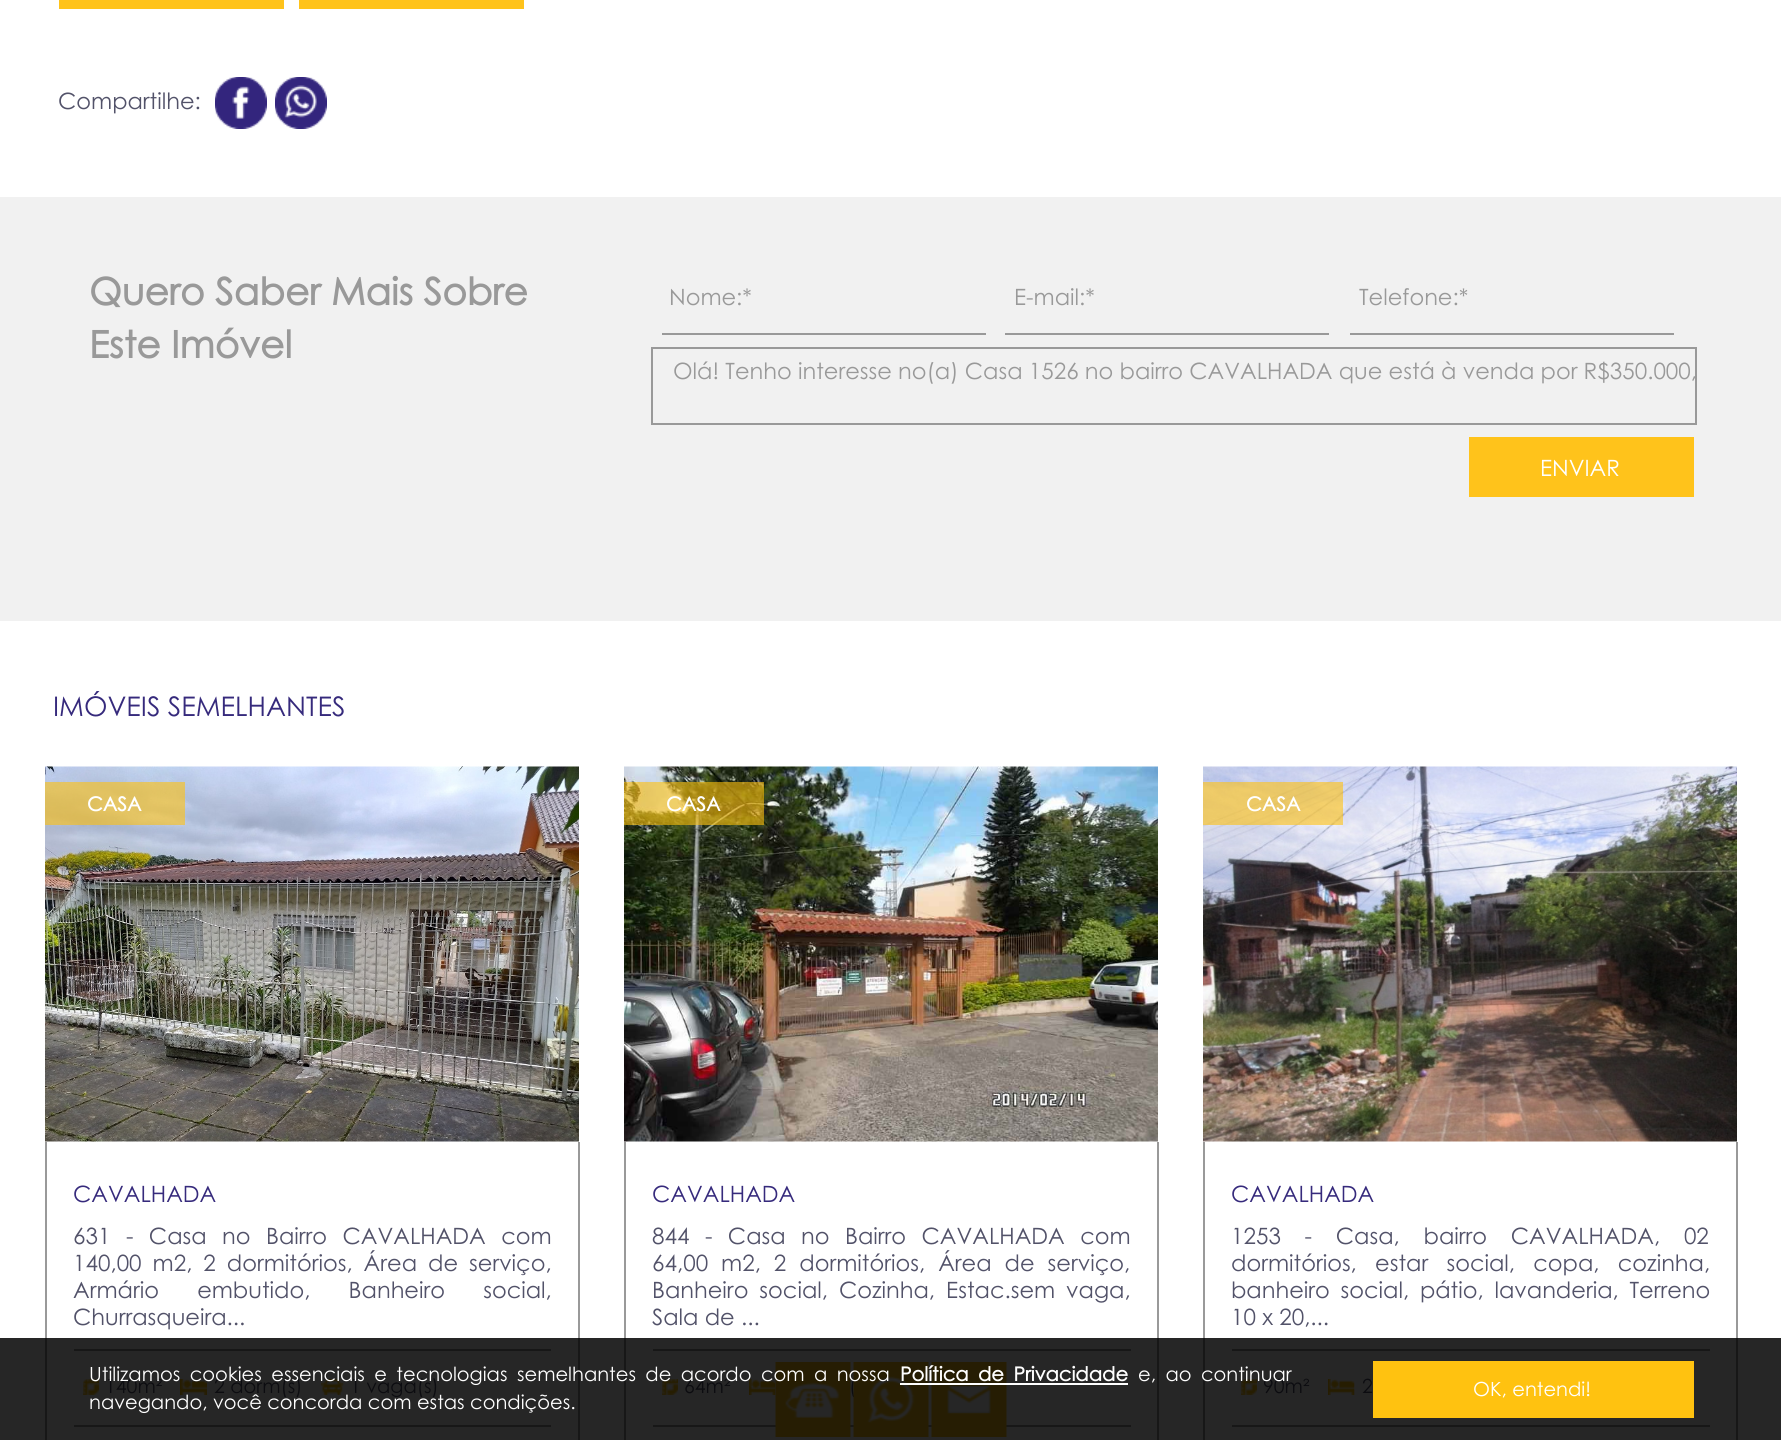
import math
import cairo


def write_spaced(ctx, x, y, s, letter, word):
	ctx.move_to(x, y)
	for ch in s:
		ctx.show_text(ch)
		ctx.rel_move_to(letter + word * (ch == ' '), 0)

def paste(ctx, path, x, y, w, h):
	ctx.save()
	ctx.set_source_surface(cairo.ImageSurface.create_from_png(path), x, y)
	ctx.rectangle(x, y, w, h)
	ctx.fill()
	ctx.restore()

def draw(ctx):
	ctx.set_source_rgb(1, 1, 1)
	ctx.paint()
	ctx.set_source_rgb(0.149, 0.149, 0.149)
	ctx.rectangle(0, 1338, 1781, 102)
	ctx.fill()
	ctx.set_source_rgb(1, 0.765, 0.106)
	ctx.rectangle(59, 0, 225, 9)
	ctx.rectangle(299, 0, 225, 9)
	ctx.fill()
	ctx.select_font_face('Century Gothic')
	ctx.set_font_size(22.5)
	ctx.set_source_rgb(0.322, 0.322, 0.412)
	ctx.move_to(58, 109)
	ctx.show_text('Compartilhe:')
	paste(ctx, 'media/1.png', 215, 77, 52, 52)
	paste(ctx, 'media/2.png', 275, 77, 52, 52)
	ctx.set_source_rgb(0.945, 0.945, 0.945)
	ctx.rectangle(0, 197, 1781, 424)
	ctx.fill()
	ctx.select_font_face('Century Gothic', cairo.FONT_SLANT_NORMAL, cairo.FONT_WEIGHT_BOLD)
	ctx.set_font_size(37.5)
	ctx.set_source_rgb(0.6, 0.6, 0.6)
	ctx.move_to(89, 305)
	ctx.show_text('Quero Saber Mais Sobre')
	ctx.move_to(89, 358)
	ctx.show_text('Este Imóvel')
	ctx.rectangle(662, 333, 324, 2)
	ctx.fill()
	ctx.select_font_face('Century Gothic')
	ctx.set_font_size(22.5)
	ctx.move_to(669, 305)
	ctx.show_text('Nome:*')
	ctx.rectangle(1005, 333, 324, 2)
	ctx.fill()
	ctx.move_to(1014, 305)
	ctx.show_text('E-mail:*')
	ctx.rectangle(1350, 333, 324, 2)
	ctx.fill()
	ctx.move_to(1359, 305)
	ctx.show_text('Telefone:*')
	ctx.rectangle(652, 348, 1044, 76)
	ctx.stroke()
	ctx.move_to(673, 379)
	ctx.show_text('Olá! Tenho interesse no(a) Casa 1526 no bairro CAVALHADA que está à venda por R$350.000,')
	ctx.set_source_rgb(1, 0.765, 0.106)
	ctx.rectangle(1469, 437, 225, 60)
	ctx.fill()
	ctx.set_source_rgb(1, 1, 1)
	ctx.move_to(1540, 476)
	ctx.show_text('ENVIAR')
	ctx.set_font_size(27)
	ctx.set_source_rgb(0.212, 0.165, 0.486)
	ctx.move_to(53, 716)
	ctx.show_text('IMÓVEIS SEMELHANTES')
	paste(ctx, 'media/3.png', 45, 766, 534, 376)
	ctx.set_source_rgba(1, 0.761, 0.059, 0.6)
	ctx.rectangle(45, 782, 140, 43)
	ctx.fill()
	ctx.select_font_face('Century Gothic', cairo.FONT_SLANT_NORMAL, cairo.FONT_WEIGHT_BOLD)
	ctx.set_font_size(19.5)
	ctx.set_source_rgb(1, 1, 1)
	ctx.move_to(87, 811)
	ctx.show_text('CASA')
	ctx.set_source_rgb(0.6, 0.6, 0.6)
	ctx.rectangle(578, 1142, 2, 196)
	ctx.fill()
	ctx.set_source_rgb(0.09, 0.09, 0.09)
	ctx.rectangle(578, 1338, 2, 102)
	ctx.fill()
	ctx.set_source_rgb(0.6, 0.6, 0.6)
	ctx.rectangle(45, 1142, 2, 196)
	ctx.fill()
	ctx.set_source_rgb(0.09, 0.09, 0.09)
	ctx.rectangle(45, 1338, 2, 102)
	ctx.fill()
	ctx.select_font_face('Century Gothic')
	ctx.set_font_size(22.5)
	ctx.set_source_rgb(0.212, 0.165, 0.486)
	ctx.move_to(73, 1202)
	ctx.show_text('CAVALHADA')
	ctx.set_source_rgb(0.322, 0.322, 0.412)
	write_spaced(ctx, 73, 1244, '631 - Casa no Bairro CAVALHADA com', 0, 9.25)
	write_spaced(ctx, 73, 1271, '140,00 m2, 2 dormitórios, Área de serviço,', 0, 4.75)
	write_spaced(ctx, 73, 1298, 'Armário embutido, Banheiro social,', 0, 32)
	ctx.move_to(73, 1325)
	ctx.show_text('Churrasqueira...')
	ctx.set_source_rgb(0.09, 0.09, 0.09)
	ctx.rectangle(74, 1349, 477, 2)
	ctx.fill()
	ctx.rectangle(74, 1425, 477, 2)
	ctx.fill()
	paste(ctx, 'media/4.png', 83, 1379, 16, 16)
	ctx.set_font_size(19.5)
	ctx.set_source_rgb(0.047, 0.047, 0.063)
	ctx.move_to(105, 1393)
	ctx.show_text('140m²')
	paste(ctx, 'media/5.png', 180, 1379, 27, 16)
	ctx.move_to(214, 1393)
	ctx.show_text('2 dorm(s)')
	paste(ctx, 'media/6.png', 321, 1379, 23, 16)
	ctx.move_to(350, 1393)
	ctx.show_text('1 vaga(s)')
	paste(ctx, 'media/7.png', 624, 766, 534, 376)
	ctx.set_source_rgba(1, 0.761, 0.059, 0.6)
	ctx.rectangle(624, 782, 140, 43)
	ctx.fill()
	ctx.select_font_face('Century Gothic', cairo.FONT_SLANT_NORMAL, cairo.FONT_WEIGHT_BOLD)
	ctx.set_source_rgb(1, 1, 1)
	ctx.move_to(666, 811)
	ctx.show_text('CASA')
	ctx.set_source_rgb(0.6, 0.6, 0.6)
	ctx.rectangle(1157, 1142, 2, 196)
	ctx.fill()
	ctx.set_source_rgb(0.09, 0.09, 0.09)
	ctx.rectangle(1157, 1338, 2, 102)
	ctx.fill()
	ctx.set_source_rgb(0.6, 0.6, 0.6)
	ctx.rectangle(624, 1142, 2, 196)
	ctx.fill()
	ctx.set_source_rgb(0.09, 0.09, 0.09)
	ctx.rectangle(624, 1338, 2, 102)
	ctx.fill()
	ctx.select_font_face('Century Gothic')
	ctx.set_font_size(22.5)
	ctx.set_source_rgb(0.212, 0.165, 0.486)
	ctx.move_to(652, 1202)
	ctx.show_text('CAVALHADA')
	ctx.set_source_rgb(0.322, 0.322, 0.412)
	write_spaced(ctx, 652, 1244, '844 - Casa no Bairro CAVALHADA com', 0, 9.25)
	write_spaced(ctx, 652, 1271, '64,00 m2, 2 dormitórios, Área de serviço,', 0, 6.75)
	write_spaced(ctx, 652, 1298, 'Banheiro social, Cozinha, Estac.sem vaga,', 0, 4.75)
	ctx.move_to(652, 1325)
	ctx.show_text('Sala de ...')
	ctx.set_source_rgb(0.09, 0.09, 0.09)
	ctx.rectangle(653, 1349, 478, 2)
	ctx.fill()
	ctx.rectangle(653, 1425, 478, 2)
	ctx.fill()
	paste(ctx, 'media/8.png', 662, 1379, 16, 16)
	ctx.set_font_size(19.5)
	ctx.set_source_rgb(0.047, 0.047, 0.063)
	ctx.move_to(684, 1393)
	ctx.show_text('64m²')
	paste(ctx, 'media/9.png', 749, 1379, 27, 16)
	ctx.move_to(849, 1393)
	ctx.show_text('(')
	paste(ctx, 'media/10.png', 1203, 766, 534, 376)
	ctx.set_source_rgba(1, 0.761, 0.059, 0.6)
	ctx.rectangle(1203, 782, 140, 43)
	ctx.fill()
	ctx.select_font_face('Century Gothic', cairo.FONT_SLANT_NORMAL, cairo.FONT_WEIGHT_BOLD)
	ctx.set_source_rgb(1, 1, 1)
	ctx.move_to(1246, 811)
	ctx.show_text('CASA')
	ctx.set_source_rgb(0.6, 0.6, 0.6)
	ctx.rectangle(1736, 1142, 2, 196)
	ctx.fill()
	ctx.set_source_rgb(0.09, 0.09, 0.09)
	ctx.rectangle(1736, 1338, 2, 102)
	ctx.fill()
	ctx.set_source_rgb(0.6, 0.6, 0.6)
	ctx.rectangle(1203, 1142, 2, 196)
	ctx.fill()
	ctx.set_source_rgb(0.09, 0.09, 0.09)
	ctx.rectangle(1203, 1338, 2, 102)
	ctx.fill()
	ctx.select_font_face('Century Gothic')
	ctx.set_font_size(22.5)
	ctx.set_source_rgb(0.212, 0.165, 0.486)
	ctx.move_to(1231, 1202)
	ctx.show_text('CAVALHADA')
	ctx.set_source_rgb(0.322, 0.322, 0.412)
	write_spaced(ctx, 1231, 1244, '1253 - Casa, bairro CAVALHADA, 02', 0, 17.5)
	write_spaced(ctx, 1231, 1271, 'dormitórios, estar social, copa, cozinha,', 0, 12)
	write_spaced(ctx, 1231, 1298, 'banheiro social, pátio, lavanderia, Terreno', 0, 4.5)
	ctx.move_to(1231, 1325)
	ctx.show_text('10 x 20,...')
	ctx.set_source_rgb(0.09, 0.09, 0.09)
	ctx.rectangle(1232, 1349, 478, 2)
	ctx.fill()
	ctx.rectangle(1232, 1425, 478, 2)
	ctx.fill()
	paste(ctx, 'media/4.png', 1241, 1379, 16, 16)
	ctx.set_font_size(19.5)
	ctx.set_source_rgb(0.047, 0.047, 0.063)
	ctx.move_to(1263, 1393)
	ctx.show_text('90m²')
	paste(ctx, 'media/9.png', 1328, 1379, 27, 16)
	ctx.move_to(1362, 1393)
	ctx.show_text('2')
	paste(ctx, 'media/11.png', 775, 1362, 76, 75)
	paste(ctx, 'media/12.png', 853, 1362, 76, 75)
	paste(ctx, 'media/13.png', 931, 1362, 76, 75)
	ctx.set_source_rgb(1, 1, 1)
	write_spaced(ctx, 89, 1381, 'Utilizamos cookies essenciais e tecnologias semelhantes de acordo com a nossa', 0, 4)
	ctx.select_font_face('Century Gothic', cairo.FONT_SLANT_NORMAL, cairo.FONT_WEIGHT_BOLD)
	write_spaced(ctx, 900, 1381, 'Política de Privacidade', 0, 4)
	ctx.rectangle(900, 1383, 228, 2)
	ctx.fill()
	ctx.select_font_face('Century Gothic')
	write_spaced(ctx, 1138, 1381, 'e, ao continuar', 0, 4)
	ctx.move_to(89, 1409)
	ctx.show_text('navegando, você concorda com estas condições.')
	ctx.set_source_rgb(1, 0.761, 0.063)
	ctx.rectangle(1373, 1361, 321, 57)
	ctx.fill()
	ctx.set_source_rgb(1, 1, 1)
	ctx.move_to(1473, 1396)
	ctx.show_text('OK, entendi!')


surface = cairo.ImageSurface(cairo.FORMAT_RGB24, 1781, 1440)
ctx = cairo.Context(surface)
options = cairo.FontOptions()
options.set_hint_metrics(cairo.HINT_METRICS_OFF)
options.set_hint_style(cairo.HINT_STYLE_NONE)
ctx.set_font_options(options)
ctx.set_miter_limit(4)
draw(ctx)
surface.write_to_png('image.png')
